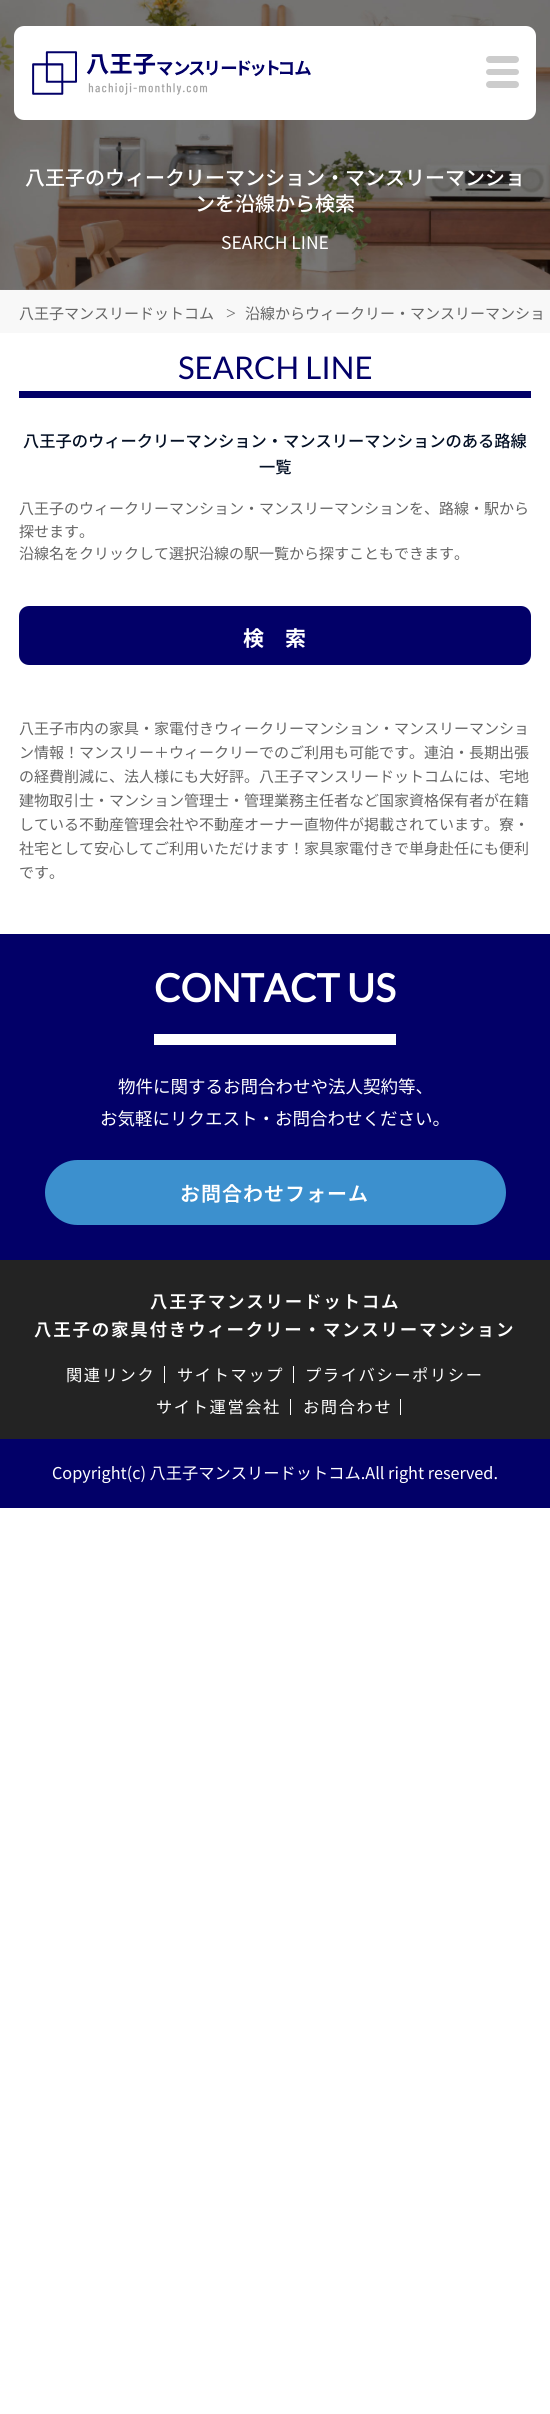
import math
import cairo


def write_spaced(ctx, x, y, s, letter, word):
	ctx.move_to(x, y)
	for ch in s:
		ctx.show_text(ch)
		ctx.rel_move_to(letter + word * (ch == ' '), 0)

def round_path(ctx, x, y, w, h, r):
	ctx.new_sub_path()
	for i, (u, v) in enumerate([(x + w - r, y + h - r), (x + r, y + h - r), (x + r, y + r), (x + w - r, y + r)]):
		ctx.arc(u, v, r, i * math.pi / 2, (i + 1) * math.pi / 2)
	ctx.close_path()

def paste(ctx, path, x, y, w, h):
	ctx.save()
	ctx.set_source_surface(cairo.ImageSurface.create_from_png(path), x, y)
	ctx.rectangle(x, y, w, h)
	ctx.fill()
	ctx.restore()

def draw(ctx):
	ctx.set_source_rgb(1, 1, 1)
	ctx.paint()
	paste(ctx, 'media/1.png', 0, 0, 550, 290)
	ctx.set_source_rgb(1, 1, 1)
	round_path(ctx, 14, 26, 522, 94, 10)
	ctx.fill()
	paste(ctx, 'media/2.png', 32, 51, 279, 44)
	ctx.set_source_rgb(0.8, 0.8, 0.8)
	round_path(ctx, 486, 56, 33, 7, 3.5)
	ctx.fill()
	round_path(ctx, 486, 69, 33, 6, 3)
	ctx.fill()
	round_path(ctx, 486, 81, 33, 7, 3.5)
	ctx.fill()
	ctx.select_font_face('Noto Sans JP Medium')
	ctx.set_font_size(20)
	ctx.set_source_rgb(1, 1, 1)
	ctx.move_to(25, 185)
	ctx.show_text('八王子のウィークリーマンション・マンスリーマンショ')
	ctx.move_to(195, 211)
	ctx.show_text('ンを沿線から検索')
	ctx.select_font_face('Noto Sans JP')
	ctx.set_font_size(17.5)
	ctx.move_to(221, 249)
	ctx.show_text('SEARCH LINE')
	ctx.set_source_rgb(0.969, 0.969, 0.969)
	ctx.rectangle(0, 290, 550, 43)
	ctx.fill()
	ctx.set_font_size(15)
	ctx.set_source_rgb(0.396, 0.396, 0.396)
	ctx.move_to(19, 319)
	ctx.show_text('八王子マンスリードットコム')
	ctx.select_font_face('Liberation Serif')
	ctx.set_font_size(17.5)
	ctx.move_to(226, 319)
	ctx.show_text('>')
	ctx.select_font_face('Noto Sans JP')
	ctx.set_font_size(15)
	ctx.move_to(245, 319)
	ctx.show_text('沿線からウィークリー・マンスリーマンショ')
	ctx.set_source_rgb(0.008, 0, 0.408)
	ctx.rectangle(19, 391, 512, 7)
	ctx.fill()
	ctx.select_font_face('Lato')
	ctx.set_font_size(31.25)
	ctx.move_to(178, 379)
	ctx.show_text('SEARCH LINE')
	ctx.select_font_face('Noto Sans JP Medium')
	ctx.set_font_size(16.25)
	ctx.set_source_rgb(0.016, 0.063, 0.145)
	ctx.move_to(23, 447)
	ctx.show_text('八王子のウィークリーマンション・マンスリーマンションのある路線')
	ctx.move_to(259, 473)
	ctx.show_text('一覧')
	ctx.select_font_face('Noto Sans JP')
	ctx.set_font_size(15)
	ctx.set_source_rgb(0.396, 0.396, 0.396)
	for x, y, s in [
		(19, 514, '八王子のウィークリーマンション・マンスリーマンションを、路線・駅から'),
		(19, 537, '探せます。'),
		(19, 559, '沿線名をクリックして選択沿線の駅一覧から探すこともできます。'),
	]:
		ctx.move_to(x, y)
		ctx.show_text(s)
	ctx.set_source_rgb(0.008, 0, 0.408)
	round_path(ctx, 19, 606, 512, 59, 10)
	ctx.fill()
	ctx.select_font_face('Noto Sans JP', cairo.FONT_SLANT_NORMAL, cairo.FONT_WEIGHT_BOLD)
	ctx.set_font_size(21)
	ctx.set_source_rgb(1, 1, 1)
	ctx.move_to(243, 646)
	ctx.show_text('検　索')
	ctx.select_font_face('Noto Sans JP')
	ctx.set_font_size(15)
	ctx.set_source_rgb(0.396, 0.396, 0.396)
	for x, y, s in [
		(19, 734, '八王子市内の家具・家電付きウィークリーマンション・マンスリーマンショ'),
		(19, 758, 'ン情報！マンスリー＋ウィークリーでのご利用も可能です。連泊・長期出張'),
		(19, 782, 'の経費削減に、法人様にも大好評。八王子マンスリードットコムには、宅地'),
		(19, 806, '建物取引士・マンション管理士・管理業務主任者など国家資格保有者が在籍'),
		(19, 830, 'している不動産管理会社や不動産オーナー直物件が掲載されています。寮・'),
		(19, 854, '社宅として安心してご利用いただけます！家具家電付きで単身赴任にも便利'),
		(19, 878, 'です。'),
	]:
		ctx.move_to(x, y)
		ctx.show_text(s)
	ctx.set_source_rgb(0.008, 0, 0.408)
	ctx.rectangle(0, 934, 550, 326)
	ctx.fill()
	ctx.set_source_rgb(1, 1, 1)
	ctx.rectangle(154, 1034, 242, 11)
	ctx.fill()
	ctx.select_font_face('Lato', cairo.FONT_SLANT_NORMAL, cairo.FONT_WEIGHT_BOLD)
	ctx.set_font_size(38.75)
	ctx.move_to(154, 1002)
	ctx.show_text('CONTACT US')
	ctx.select_font_face('Noto Sans JP')
	ctx.set_font_size(17.5)
	ctx.move_to(118, 1093)
	ctx.show_text('物件に関するお問合わせや法人契約等、')
	ctx.move_to(100, 1125)
	ctx.show_text('お気軽にリクエスト・お問合わせください。')
	ctx.set_source_rgb(0.235, 0.565, 0.808)
	round_path(ctx, 45, 1160, 461, 65, 32.5)
	ctx.fill()
	ctx.select_font_face('Noto Sans JP SemiBold')
	ctx.set_font_size(20)
	ctx.set_source_rgb(1, 1, 1)
	write_spaced(ctx, 180, 1201, 'お問合わせフォーム', 1, 0)
	ctx.set_source_rgb(0.137, 0.137, 0.137)
	ctx.rectangle(0, 1260, 550, 179)
	ctx.fill()
	ctx.set_font_size(17.5)
	ctx.set_source_rgb(1, 1, 1)
	write_spaced(ctx, 150, 1308, '八王子マンスリードットコム', 1.75, 0)
	write_spaced(ctx, 34, 1336, '八王子の家具付きウィークリー・マンスリーマンション', 1.75, 0)
	ctx.rectangle(164, 1366, 1, 17)
	ctx.fill()
	ctx.select_font_face('Noto Sans JP')
	ctx.set_font_size(16.25)
	write_spaced(ctx, 66, 1381, '関連リンク', 1.6, 0)
	ctx.rectangle(293, 1366, 1, 17)
	ctx.fill()
	write_spaced(ctx, 177, 1381, 'サイトマップ', 1.6, 0)
	write_spaced(ctx, 305, 1381, 'プライバシーポリシー', 1.6, 0)
	ctx.rectangle(290, 1399, 1, 16)
	ctx.fill()
	write_spaced(ctx, 156, 1413, 'サイト運営会社', 1.6, 0)
	ctx.rectangle(400, 1399, 1, 16)
	ctx.fill()
	write_spaced(ctx, 303, 1413, 'お問合わせ', 1.6, 0)
	ctx.set_source_rgb(0.008, 0, 0.408)
	ctx.rectangle(0, 1439, 550, 69)
	ctx.fill()
	ctx.set_source_rgb(1, 1, 1)
	ctx.move_to(52, 1479)
	ctx.show_text('Copyright(c) 八王子マンスリードットコム.All right reserved.')


surface = cairo.ImageSurface(cairo.FORMAT_RGB24, 550, 2414)
ctx = cairo.Context(surface)
options = cairo.FontOptions()
options.set_hint_metrics(cairo.HINT_METRICS_OFF)
options.set_hint_style(cairo.HINT_STYLE_NONE)
ctx.set_font_options(options)
ctx.set_miter_limit(4)
draw(ctx)
surface.write_to_png('image.png')
